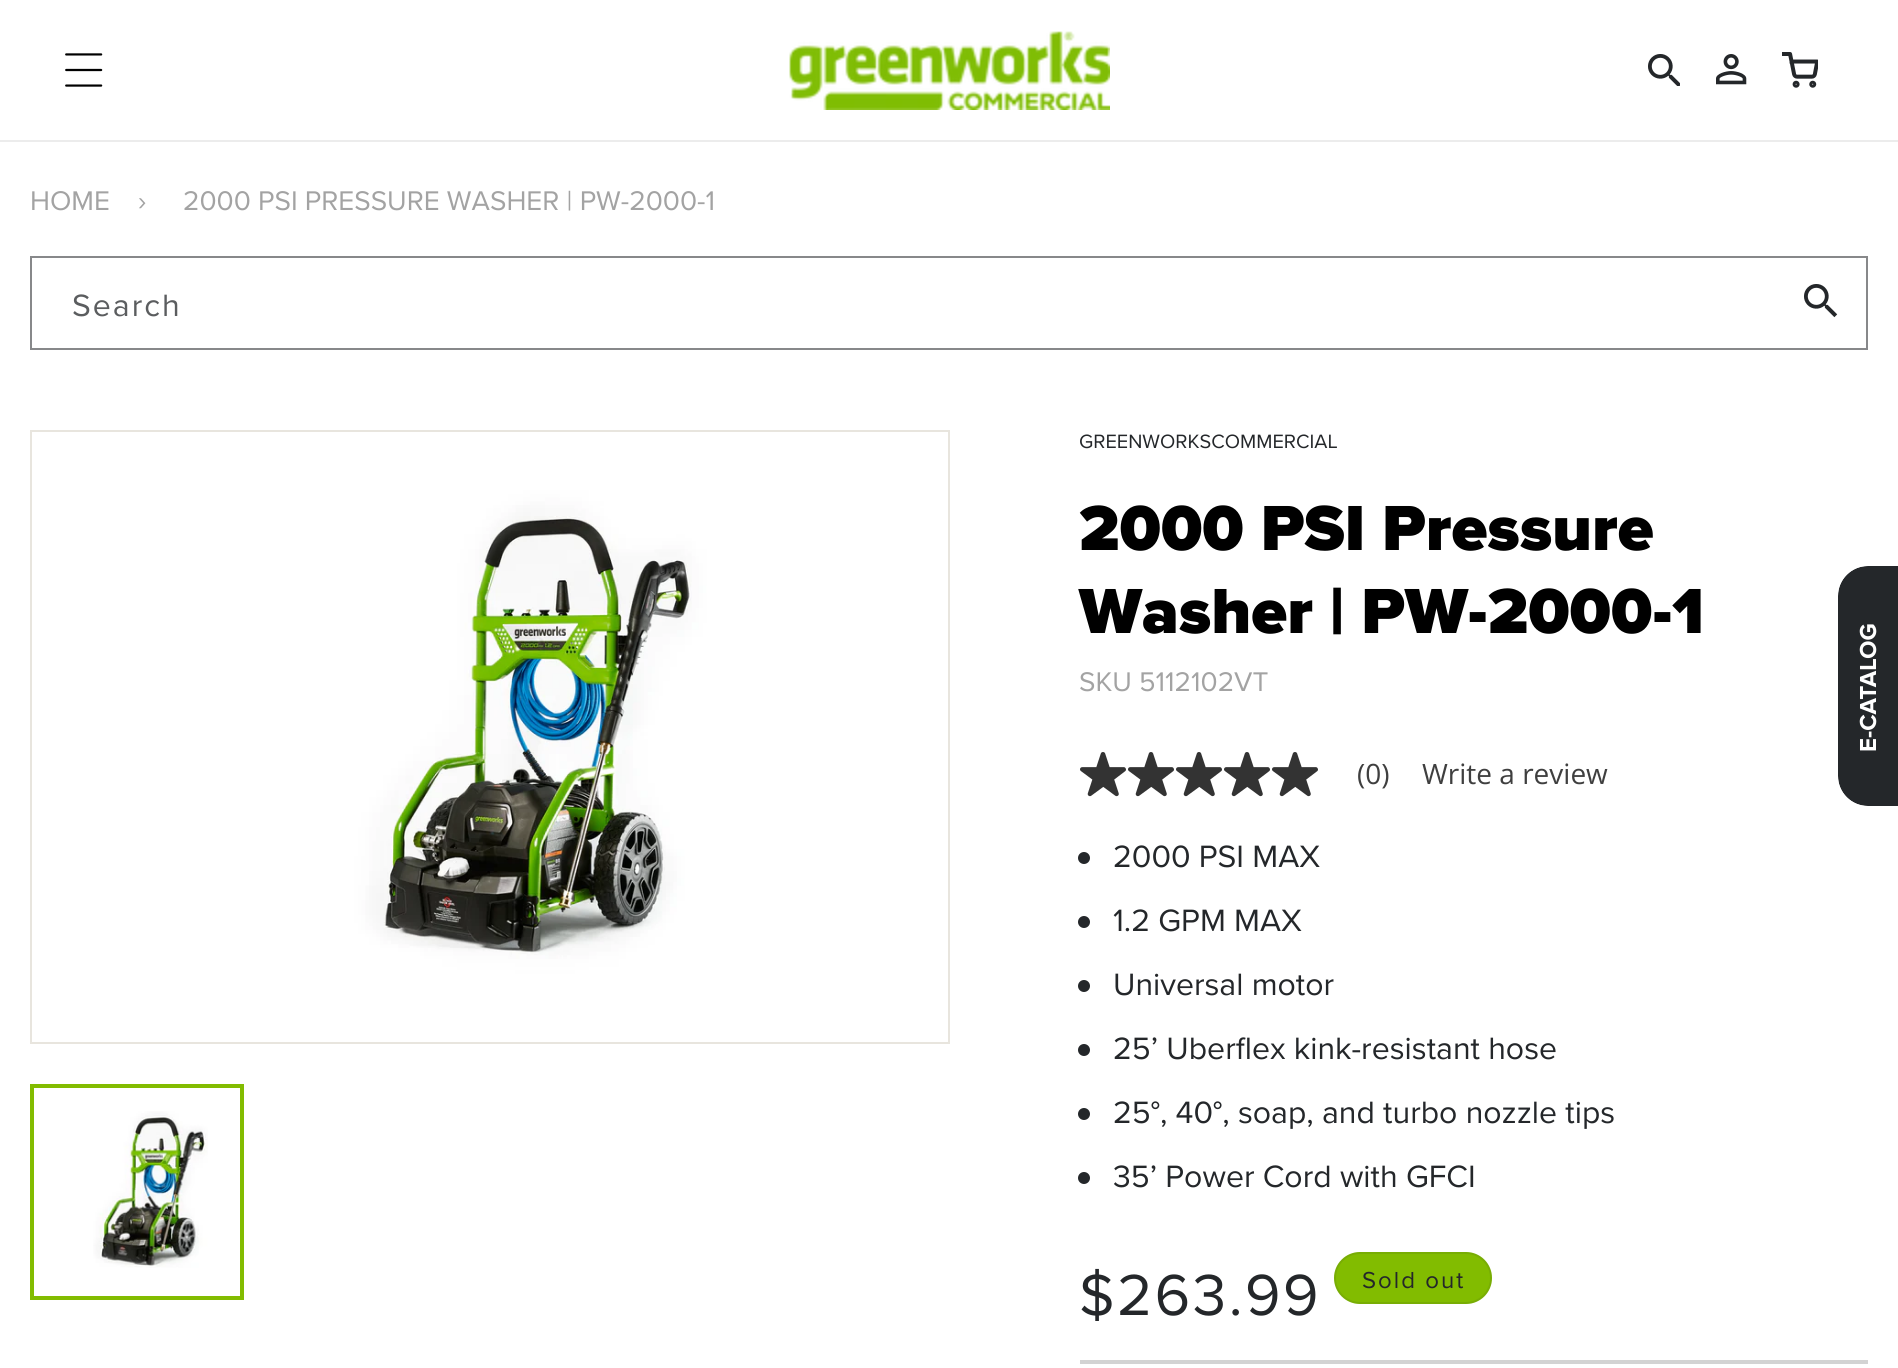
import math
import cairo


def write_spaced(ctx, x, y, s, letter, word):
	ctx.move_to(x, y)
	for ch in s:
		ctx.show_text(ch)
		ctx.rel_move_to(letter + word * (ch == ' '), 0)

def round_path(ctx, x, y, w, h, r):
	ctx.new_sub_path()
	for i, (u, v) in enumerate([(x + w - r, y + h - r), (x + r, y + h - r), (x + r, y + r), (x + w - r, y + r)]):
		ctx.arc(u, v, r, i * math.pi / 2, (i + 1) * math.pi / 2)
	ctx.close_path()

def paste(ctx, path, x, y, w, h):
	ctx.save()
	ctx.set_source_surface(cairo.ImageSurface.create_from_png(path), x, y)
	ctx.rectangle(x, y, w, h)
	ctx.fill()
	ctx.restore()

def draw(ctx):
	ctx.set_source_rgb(1, 1, 1)
	ctx.paint()
	ctx.set_source_rgb(0.922, 0.922, 0.922)
	ctx.rectangle(0, 140, 1898, 2)
	ctx.fill()
	paste(ctx, 'media/1.png', 65, 53, 38, 34)
	paste(ctx, 'media/2.png', 789, 31, 321, 79)
	paste(ctx, 'media/3.png', 1648, 54, 32, 32)
	paste(ctx, 'media/4.png', 1716, 54, 31, 31)
	paste(ctx, 'media/5.png', 1782, 52, 36, 36)
	ctx.select_font_face('Proxima Nova')
	ctx.set_font_size(28)
	ctx.set_source_rgb(0.639, 0.639, 0.639)
	for x, y, s in [
		(30, 210, 'HOME'),
		(138, 210, '›'),
		(183, 210, '2000 PSI PRESSURE WASHER | PW-2000-1'),
	]:
		ctx.move_to(x, y)
		ctx.show_text(s)
	paste(ctx, 'media/6.png', 1804, 284, 34, 34)
	ctx.rectangle(31, 257, 1836, 92)
	ctx.set_source_rgb(0.529, 0.533, 0.541)
	ctx.stroke()
	ctx.set_font_size(32)
	ctx.set_source_rgb(0.357, 0.365, 0.373)
	write_spaced(ctx, 72, 316, 'Search', 2, 0)
	ctx.rectangle(31, 431, 918, 612)
	ctx.set_source_rgb(0.91, 0.898, 0.871)
	ctx.stroke()
	paste(ctx, 'media/7.png', 32, 432, 916, 610)
	ctx.rectangle(32, 1086, 210, 212)
	ctx.set_source_rgb(0.51, 0.737, 0)
	ctx.set_line_width(4)
	ctx.stroke()
	paste(ctx, 'media/8.png', 93, 1111, 115, 157)
	ctx.set_font_size(20)
	ctx.set_source_rgb(0.141, 0.153, 0.165)
	ctx.move_to(1079, 448)
	ctx.show_text('GREENWORKSCOMMERCIAL')
	ctx.select_font_face('Proxima Nova Black')
	ctx.set_font_size(66)
	ctx.set_source_rgb(0, 0, 0)
	ctx.move_to(1079, 550)
	ctx.show_text('2000 PSI Pressure')
	ctx.move_to(1079, 633)
	ctx.show_text('Washer | PW-2000-1')
	ctx.select_font_face('Proxima Nova')
	ctx.set_font_size(28)
	ctx.set_source_rgb(0.639, 0.639, 0.639)
	ctx.move_to(1079, 691)
	ctx.show_text('SKU 5112102VT')
	paste(ctx, 'media/9.png', 1080, 752, 46, 45)
	paste(ctx, 'media/9.png', 1128, 752, 46, 45)
	paste(ctx, 'media/9.png', 1176, 752, 46, 45)
	paste(ctx, 'media/9.png', 1224, 752, 46, 45)
	paste(ctx, 'media/9.png', 1272, 752, 46, 45)
	ctx.select_font_face('Open Sans')
	ctx.set_source_rgb(0.247, 0.247, 0.247)
	ctx.move_to(1357, 784)
	ctx.show_text('(0)')
	ctx.move_to(1422, 784)
	ctx.show_text('Write a review')
	ctx.set_source_rgb(0.141, 0.153, 0.165)
	ctx.new_path()
	ctx.arc(1084, 858, 6, 0, 2 * math.pi)
	ctx.fill()
	ctx.select_font_face('Proxima Nova')
	ctx.set_font_size(32)
	ctx.move_to(1113, 867)
	ctx.show_text('2000 PSI MAX')
	ctx.new_path()
	ctx.arc(1084, 922, 6, 0, 2 * math.pi)
	ctx.fill()
	ctx.move_to(1113, 931)
	ctx.show_text('1.2 GPM MAX')
	ctx.new_path()
	ctx.arc(1084, 986, 6, 0, 2 * math.pi)
	ctx.fill()
	ctx.move_to(1113, 995)
	ctx.show_text('Universal motor')
	ctx.new_path()
	ctx.arc(1084, 1050, 6, 0, 2 * math.pi)
	ctx.fill()
	ctx.move_to(1113, 1059)
	ctx.show_text('25’ Uberflex kink-resistant hose')
	ctx.new_path()
	ctx.arc(1084, 1114, 6, 0, 2 * math.pi)
	ctx.fill()
	ctx.move_to(1113, 1123)
	ctx.show_text('25°, 40°, soap, and turbo nozzle tips')
	ctx.new_path()
	ctx.arc(1084, 1178, 6, 0, 2 * math.pi)
	ctx.fill()
	ctx.move_to(1113, 1187)
	ctx.show_text('35’ Power Cord with GFCI')
	ctx.set_source_rgb(0.827, 0.827, 0.827)
	ctx.rectangle(1080, 1360, 788, 4)
	ctx.fill()
	ctx.set_font_size(60)
	ctx.set_source_rgb(0.141, 0.153, 0.165)
	write_spaced(ctx, 1079, 1315, '$263.99', 2.5, 0)
	ctx.set_source_rgb(0.51, 0.737, 0)
	round_path(ctx, 1334, 1252, 158, 52, 26)
	ctx.fill()
	round_path(ctx, 1335, 1253, 156, 50, 25)
	ctx.set_source_rgba(0.141, 0.153, 0.165, 0.1)
	ctx.set_line_width(2)
	ctx.stroke()
	ctx.set_font_size(24)
	ctx.set_source_rgb(0.141, 0.153, 0.165)
	write_spaced(ctx, 1362, 1288, 'Sold out', 2, 0)
	paste(ctx, 'media/10.png', 1838, 566, 60, 240)


surface = cairo.ImageSurface(cairo.FORMAT_RGB24, 1898, 1368)
ctx = cairo.Context(surface)
options = cairo.FontOptions()
options.set_hint_metrics(cairo.HINT_METRICS_OFF)
options.set_hint_style(cairo.HINT_STYLE_NONE)
ctx.set_font_options(options)
ctx.set_miter_limit(4)
draw(ctx)
surface.write_to_png('image.png')
